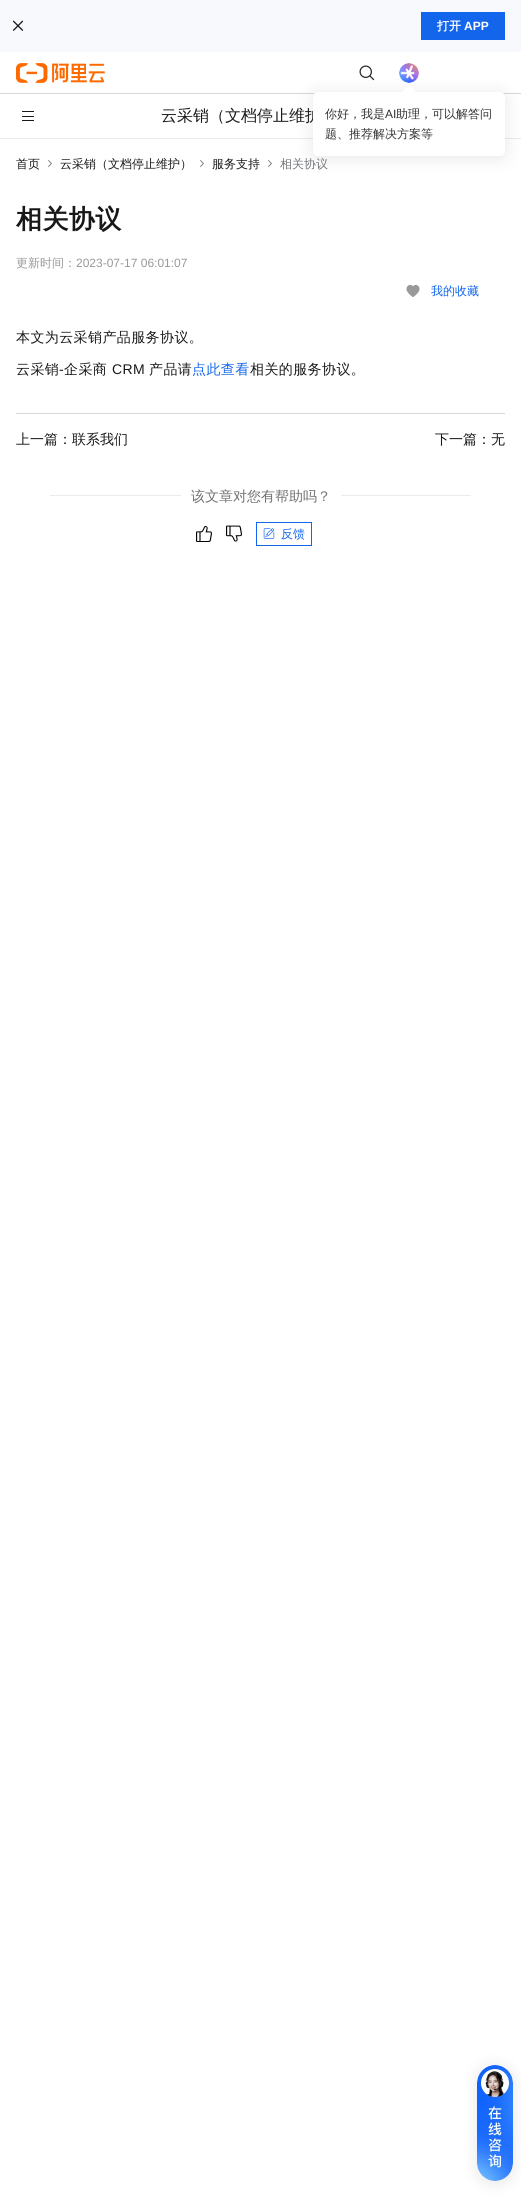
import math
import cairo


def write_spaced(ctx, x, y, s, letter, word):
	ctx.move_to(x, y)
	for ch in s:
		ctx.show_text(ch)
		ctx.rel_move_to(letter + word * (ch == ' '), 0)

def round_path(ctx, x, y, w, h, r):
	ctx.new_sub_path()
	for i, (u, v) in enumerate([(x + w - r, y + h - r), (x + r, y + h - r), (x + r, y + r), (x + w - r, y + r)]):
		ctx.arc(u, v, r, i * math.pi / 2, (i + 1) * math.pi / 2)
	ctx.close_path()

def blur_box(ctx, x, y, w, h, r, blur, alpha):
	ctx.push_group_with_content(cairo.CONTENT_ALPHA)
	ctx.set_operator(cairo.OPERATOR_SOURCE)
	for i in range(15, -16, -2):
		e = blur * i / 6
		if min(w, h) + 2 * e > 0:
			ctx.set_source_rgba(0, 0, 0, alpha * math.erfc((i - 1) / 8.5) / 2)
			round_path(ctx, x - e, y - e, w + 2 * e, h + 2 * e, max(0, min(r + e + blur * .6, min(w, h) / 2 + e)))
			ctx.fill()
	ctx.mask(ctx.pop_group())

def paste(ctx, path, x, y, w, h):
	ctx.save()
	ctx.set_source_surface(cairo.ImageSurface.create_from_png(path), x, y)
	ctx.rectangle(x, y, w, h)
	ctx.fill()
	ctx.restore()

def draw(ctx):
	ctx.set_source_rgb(1, 1, 1)
	ctx.paint()
	ctx.set_source_rgb(0.969, 0.976, 0.988)
	ctx.rectangle(0, 0, 521, 52)
	ctx.fill()
	paste(ctx, 'media/1.png', 12, 20, 12, 11)
	ctx.set_source_rgb(0.075, 0.4, 0.925)
	ctx.rectangle(421, 12, 84, 28)
	ctx.fill()
	ctx.select_font_face('WenQuanYi Zen Hei', cairo.FONT_SLANT_NORMAL, cairo.FONT_WEIGHT_BOLD)
	ctx.set_font_size(12)
	ctx.set_source_rgb(1, 1, 1)
	ctx.move_to(437, 30)
	ctx.show_text('打开')
	ctx.select_font_face('Liberation Sans', cairo.FONT_SLANT_NORMAL, cairo.FONT_WEIGHT_BOLD)
	ctx.move_to(464, 30)
	ctx.show_text('APP')
	ctx.set_source_rgb(0.843, 0.847, 0.851)
	ctx.rectangle(0, 93, 521, 1)
	ctx.fill()
	paste(ctx, 'media/2.png', 16, 63, 89, 20)
	paste(ctx, 'media/3.png', 359, 65, 16, 16)
	paste(ctx, 'media/4.png', 399, 63, 20, 20)
	paste(ctx, 'media/5.png', 400, 65, 15, 15)
	ctx.set_source_rgb(0.914, 0.914, 0.914)
	ctx.rectangle(0, 138, 521, 1)
	ctx.fill()
	ctx.set_source_rgb(0, 0, 0)
	blur_box(ctx, 313, 94, 192, 64, 5, 9, 0.1)
	ctx.select_font_face('WenQuanYi Zen Hei Medium')
	ctx.set_font_size(16)
	ctx.set_source_rgb(0.094, 0.094, 0.094)
	ctx.move_to(161, 121)
	ctx.show_text('云采销（文档停止维护')
	ctx.set_source_rgb(1, 1, 1)
	round_path(ctx, 313, 92, 192, 64, 5)
	ctx.fill()
	ctx.new_path()
	ctx.move_to(409, 85)
	ctx.line_to(416, 92)
	ctx.line_to(409, 99)
	ctx.line_to(402, 92)
	ctx.close_path()
	ctx.fill()
	ctx.set_font_size(12)
	ctx.set_source_rgb(0.2, 0.2, 0.2)
	ctx.move_to(325, 118)
	ctx.show_text('你好，我是')
	ctx.select_font_face('Liberation Sans')
	ctx.move_to(385, 118)
	ctx.show_text('AI')
	ctx.select_font_face('WenQuanYi Zen Hei Medium')
	ctx.move_to(396, 118)
	ctx.show_text('助理，可以解答问')
	ctx.move_to(325, 138)
	ctx.show_text('题、推荐解决方案等')
	ctx.set_source_rgb(0.094, 0.094, 0.094)
	ctx.rectangle(22, 111, 12, 1)
	ctx.rectangle(22, 116, 12, 1)
	ctx.rectangle(22, 120, 12, 1)
	ctx.fill()
	ctx.move_to(16, 168)
	ctx.show_text('首页')
	paste(ctx, 'media/6.png', 48, 160, 4, 7)
	ctx.move_to(60, 168)
	ctx.show_text('云采销（文档停止维护）')
	paste(ctx, 'media/6.png', 200, 160, 4, 7)
	ctx.move_to(212, 168)
	ctx.show_text('服务支持')
	paste(ctx, 'media/6.png', 268, 160, 4, 7)
	ctx.set_source_rgb(0.451, 0.467, 0.478)
	ctx.move_to(280, 168)
	ctx.show_text('相关协议')
	ctx.select_font_face('WenQuanYi Zen Hei', cairo.FONT_SLANT_NORMAL, cairo.FONT_WEIGHT_BOLD)
	ctx.set_font_size(26)
	ctx.set_source_rgb(0.094, 0.094, 0.094)
	write_spaced(ctx, 16, 228, '相关协议', 0.4, 0)
	ctx.select_font_face('WenQuanYi Zen Hei Medium')
	ctx.set_font_size(12)
	ctx.set_source_rgb(0.6, 0.6, 0.6)
	ctx.move_to(16, 267)
	ctx.show_text('更新时间：')
	ctx.select_font_face('Liberation Sans')
	ctx.move_to(76, 267)
	ctx.show_text('2023-07-17 06:01:07')
	paste(ctx, 'media/7.png', 406, 284, 14, 13)
	ctx.select_font_face('WenQuanYi Zen Hei Medium')
	ctx.set_source_rgb(0.075, 0.4, 0.925)
	ctx.move_to(431, 295)
	ctx.show_text('我的收藏')
	ctx.set_font_size(14)
	ctx.set_source_rgb(0.094, 0.094, 0.094)
	write_spaced(ctx, 16, 342, '本文为云采销产品服务协议。', 0.4, 0)
	write_spaced(ctx, 16, 374, '云采销', 0.4, 0)
	ctx.select_font_face('Liberation Sans')
	write_spaced(ctx, 59, 374, '-', 0.4, 0)
	ctx.select_font_face('WenQuanYi Zen Hei Medium')
	write_spaced(ctx, 64, 374, '企采商', 0.4, 0)
	ctx.select_font_face('Liberation Sans')
	write_spaced(ctx, 112, 374, 'CRM', 0.4, 0)
	ctx.select_font_face('WenQuanYi Zen Hei Medium')
	write_spaced(ctx, 149, 374, '产品请', 0.4, 0)
	ctx.set_source_rgb(0.075, 0.4, 0.925)
	write_spaced(ctx, 192, 374, '点此查看', 0.4, 0)
	ctx.set_source_rgb(0.094, 0.094, 0.094)
	write_spaced(ctx, 250, 374, '相关的服务协议。', 0.4, 0)
	ctx.set_source_rgb(0.843, 0.847, 0.851)
	ctx.rectangle(16, 413, 489, 1)
	ctx.fill()
	ctx.set_source_rgb(0.094, 0.094, 0.094)
	ctx.move_to(16, 444)
	ctx.show_text('上一篇：联系我们')
	ctx.move_to(435, 444)
	ctx.show_text('下一篇：无')
	ctx.set_source_rgb(0.918, 0.918, 0.918)
	ctx.rectangle(50, 495, 131, 1)
	ctx.fill()
	ctx.set_source_rgb(0.443, 0.443, 0.443)
	ctx.move_to(191, 501)
	ctx.show_text('该文章对您有帮助吗？')
	ctx.set_source_rgb(0.918, 0.918, 0.918)
	ctx.rectangle(341, 495, 130, 1)
	ctx.fill()
	paste(ctx, 'media/8.png', 196, 526, 16, 16)
	paste(ctx, 'media/9.png', 226, 525, 16, 17)
	ctx.rectangle(256.5, 522.5, 55, 23)
	ctx.set_source_rgb(0.075, 0.4, 0.925)
	ctx.set_line_width(1)
	ctx.stroke()
	paste(ctx, 'media/10.png', 263, 528, 12, 11)
	ctx.set_font_size(12)
	ctx.move_to(281, 538)
	ctx.show_text('反馈')
	ctx.set_source_rgb(0, 0, 0)
	blur_box(ctx, 477, 2067, 36, 116, 18, 7.5, 0.1)
	paste(ctx, 'media/11.png', 477, 2065, 36, 116)


surface = cairo.ImageSurface(cairo.FORMAT_RGB24, 521, 2201)
ctx = cairo.Context(surface)
options = cairo.FontOptions()
options.set_hint_metrics(cairo.HINT_METRICS_OFF)
options.set_hint_style(cairo.HINT_STYLE_NONE)
ctx.set_font_options(options)
ctx.set_miter_limit(4)
draw(ctx)
surface.write_to_png('image.png')
